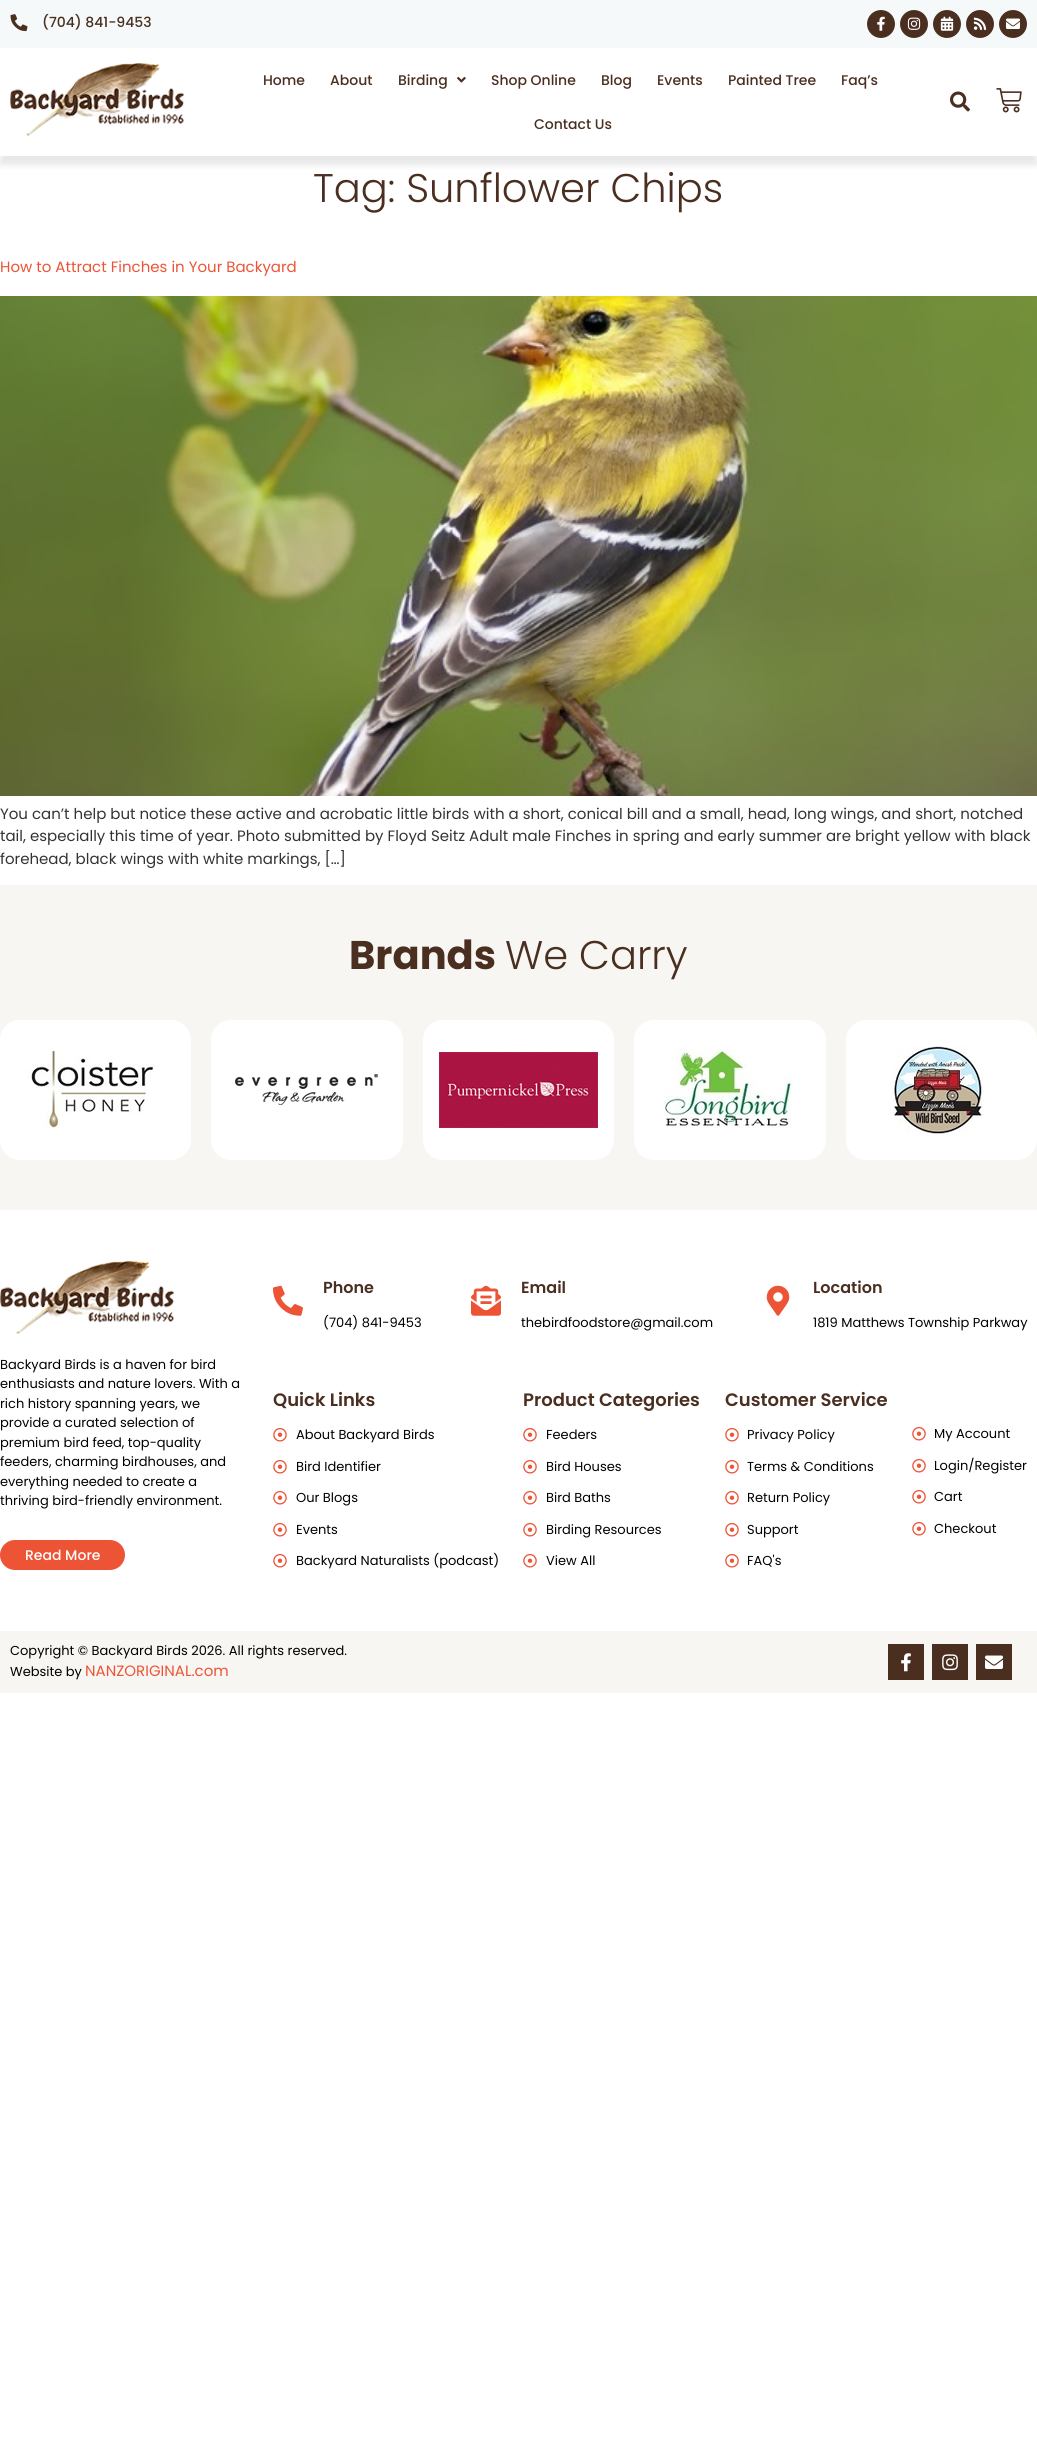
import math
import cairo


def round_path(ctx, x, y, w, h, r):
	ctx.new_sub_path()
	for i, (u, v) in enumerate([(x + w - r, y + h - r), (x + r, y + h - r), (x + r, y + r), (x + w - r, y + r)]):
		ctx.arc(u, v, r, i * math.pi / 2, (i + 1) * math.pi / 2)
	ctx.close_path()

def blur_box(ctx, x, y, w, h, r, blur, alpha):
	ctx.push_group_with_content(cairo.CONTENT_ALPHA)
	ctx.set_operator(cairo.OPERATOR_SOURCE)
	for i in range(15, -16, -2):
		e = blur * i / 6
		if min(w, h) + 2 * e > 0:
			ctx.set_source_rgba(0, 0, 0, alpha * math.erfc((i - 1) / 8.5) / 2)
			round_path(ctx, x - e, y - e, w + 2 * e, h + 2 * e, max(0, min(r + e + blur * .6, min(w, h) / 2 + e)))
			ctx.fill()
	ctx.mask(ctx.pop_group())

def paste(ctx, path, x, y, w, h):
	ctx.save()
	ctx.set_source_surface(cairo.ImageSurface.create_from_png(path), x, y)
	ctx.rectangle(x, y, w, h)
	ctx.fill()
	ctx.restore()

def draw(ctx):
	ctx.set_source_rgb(1, 1, 1)
	ctx.paint()
	ctx.set_source_rgb(0.961, 0.976, 0.98)
	ctx.rectangle(0, 0, 1037, 48)
	ctx.fill()
	paste(ctx, 'media/1.png', 10, 14, 18, 18)
	ctx.select_font_face('Poppins Medium')
	ctx.set_font_size(14)
	ctx.set_source_rgb(0.29, 0.184, 0.129)
	ctx.move_to(42, 27)
	ctx.show_text('(704) 841-9453')
	ctx.new_path()
	ctx.arc(881, 24, 14, 0, 2 * math.pi)
	ctx.fill()
	paste(ctx, 'media/2.png', 877, 16, 8, 15)
	ctx.arc(914, 24, 14, 0, 2 * math.pi)
	ctx.fill()
	paste(ctx, 'media/3.png', 907, 17, 14, 13)
	ctx.arc(947, 24, 14, 0, 2 * math.pi)
	ctx.fill()
	paste(ctx, 'media/4.png', 940, 16, 14, 15)
	ctx.arc(980, 24, 14, 0, 2 * math.pi)
	ctx.fill()
	paste(ctx, 'media/5.png', 973, 17, 14, 13)
	ctx.arc(1013, 24, 14, 0, 2 * math.pi)
	ctx.fill()
	paste(ctx, 'media/6.png', 1006, 18, 14, 11)
	ctx.save()
	ctx.rectangle(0, 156, 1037, 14)
	ctx.clip()
	ctx.set_source_rgb(0.82, 0.82, 0.82)
	blur_box(ctx, 0, 57, 1037, 108, 0, 3, 0.5)
	ctx.restore()
	paste(ctx, 'media/7.png', 10, 62, 174, 74)
	for x, y, s in [
		(263, 85, 'Home'),
		(330, 85, 'About'),
		(398, 85, 'Birding'),
	]:
		ctx.move_to(x, y)
		ctx.show_text(s)
	paste(ctx, 'media/8.png', 457, 77, 9, 6)
	for x, y, s in [
		(491, 85, 'Shop Online'),
		(601, 85, 'Blog'),
		(657, 85, 'Events'),
		(728, 85, 'Painted Tree'),
		(841, 85, 'Faq’s'),
		(534, 129, 'Contact Us'),
	]:
		ctx.move_to(x, y)
		ctx.show_text(s)
	paste(ctx, 'media/9.png', 950, 91, 20, 21)
	paste(ctx, 'media/10.png', 996, 88, 26, 25)
	ctx.select_font_face('Poppins Light')
	ctx.set_font_size(40)
	ctx.move_to(313, 202)
	ctx.show_text('Tag: Sunflower Chips')
	ctx.select_font_face('Poppins')
	ctx.set_font_size(15)
	ctx.set_source_rgb(0.929, 0.329, 0.212)
	ctx.move_to(0, 272)
	ctx.show_text('How to Attract Finches in Your Backyard')
	paste(ctx, 'media/11.png', 0, 296, 1037, 500)
	ctx.set_source_rgb(0.2, 0.2, 0.2)
	for x, y, s in [
		(0, 819, 'You can’t help but notice these active and acrobatic little birds with a short, conical bill and a small, head, long wings, and short, notched'),
		(0, 841, 'tail, especially this time of year. Photo submitted by Floyd Seitz Adult male Finches in spring and early summer are bright yellow with black'),
		(0, 864, 'forehead, black wings with white markings, […]'),
	]:
		ctx.move_to(x, y)
		ctx.show_text(s)
	ctx.set_source_rgb(0.965, 0.961, 0.953)
	ctx.rectangle(0, 885, 1037, 325)
	ctx.fill()
	ctx.select_font_face('Poppins', cairo.FONT_SLANT_NORMAL, cairo.FONT_WEIGHT_BOLD)
	ctx.set_font_size(40)
	ctx.set_source_rgb(0.29, 0.184, 0.129)
	ctx.move_to(349, 969)
	ctx.show_text('Brands')
	ctx.select_font_face('Poppins Light')
	ctx.move_to(505, 969)
	ctx.show_text('We Carry')
	ctx.set_source_rgb(1, 1, 1)
	round_path(ctx, 0, 1020, 191, 140, 20)
	ctx.fill()
	paste(ctx, 'media/12.png', 27, 1051, 129, 78)
	round_path(ctx, 211, 1020, 192, 140, 20)
	ctx.fill()
	paste(ctx, 'media/13.png', 235, 1074, 143, 31)
	round_path(ctx, 423, 1020, 191, 140, 20)
	ctx.fill()
	paste(ctx, 'media/14.png', 439, 1052, 159, 76)
	round_path(ctx, 634, 1020, 192, 140, 20)
	ctx.fill()
	paste(ctx, 'media/15.png', 664, 1049, 129, 79)
	round_path(ctx, 846, 1020, 191, 140, 20)
	ctx.fill()
	paste(ctx, 'media/16.png', 891, 1046, 93, 89)
	paste(ctx, 'media/7.png', 0, 1260, 174, 74)
	ctx.select_font_face('Poppins')
	ctx.set_font_size(13)
	ctx.set_source_rgb(0, 0, 0)
	for x, y, s in [
		(0, 1369, 'Backyard Birds is a haven for bird'),
		(0, 1388, 'enthusiasts and nature lovers. With a'),
		(0, 1408, 'rich history spanning years, we'),
		(0, 1427, 'provide a curated selection of'),
		(0, 1447, 'premium bird feed, top-quality'),
		(0, 1466, 'feeders, charming birdhouses, and'),
		(0, 1486, 'everything needed to create a'),
		(0, 1505, 'thriving bird-friendly environment.'),
	]:
		ctx.move_to(x, y)
		ctx.show_text(s)
	ctx.set_source_rgb(0.929, 0.329, 0.212)
	round_path(ctx, 0, 1540, 125, 30, 15)
	ctx.fill()
	ctx.select_font_face('Poppins Medium')
	ctx.set_font_size(14)
	ctx.set_source_rgb(1, 1, 1)
	ctx.move_to(25, 1560)
	ctx.show_text('Read More')
	paste(ctx, 'media/17.png', 273, 1285, 30, 31)
	ctx.select_font_face('Poppins SemiBold')
	ctx.set_font_size(16)
	ctx.set_source_rgb(0.29, 0.184, 0.129)
	ctx.move_to(323, 1293)
	ctx.show_text('Phone')
	ctx.select_font_face('Poppins')
	ctx.set_font_size(13)
	ctx.set_source_rgb(0, 0, 0)
	ctx.move_to(323, 1327)
	ctx.show_text('(704) 841-9453')
	paste(ctx, 'media/18.png', 471, 1285, 30, 31)
	ctx.select_font_face('Poppins SemiBold')
	ctx.set_font_size(16)
	ctx.set_source_rgb(0.29, 0.184, 0.129)
	ctx.move_to(521, 1293)
	ctx.show_text('Email')
	ctx.select_font_face('Poppins')
	ctx.set_font_size(13)
	ctx.set_source_rgb(0, 0, 0)
	ctx.move_to(521, 1327)
	ctx.show_text('thebirdfoodstore@gmail.com')
	paste(ctx, 'media/19.png', 766, 1285, 24, 31)
	ctx.select_font_face('Poppins SemiBold')
	ctx.set_font_size(16)
	ctx.set_source_rgb(0.29, 0.184, 0.129)
	ctx.move_to(813, 1293)
	ctx.show_text('Location')
	ctx.select_font_face('Poppins')
	ctx.set_font_size(13)
	ctx.set_source_rgb(0, 0, 0)
	ctx.move_to(813, 1327)
	ctx.show_text('1819 Matthews Township Parkway')
	ctx.select_font_face('Poppins SemiBold')
	ctx.set_font_size(18)
	ctx.set_source_rgb(0.29, 0.184, 0.129)
	ctx.move_to(273, 1406)
	ctx.show_text('Quick Links')
	paste(ctx, 'media/20.png', 273, 1428, 14, 14)
	ctx.select_font_face('Poppins')
	ctx.set_font_size(13)
	ctx.set_source_rgb(0, 0, 0)
	ctx.move_to(296, 1439)
	ctx.show_text('About Backyard Birds')
	paste(ctx, 'media/20.png', 273, 1460, 14, 14)
	ctx.move_to(296, 1471)
	ctx.show_text('Bird Identifier')
	paste(ctx, 'media/20.png', 273, 1491, 14, 14)
	ctx.move_to(296, 1502)
	ctx.show_text('Our Blogs')
	paste(ctx, 'media/20.png', 273, 1523, 14, 14)
	ctx.move_to(296, 1534)
	ctx.show_text('Events')
	paste(ctx, 'media/20.png', 273, 1554, 14, 14)
	ctx.move_to(296, 1565)
	ctx.show_text('Backyard Naturalists (podcast)')
	ctx.select_font_face('Poppins SemiBold')
	ctx.set_font_size(18)
	ctx.set_source_rgb(0.29, 0.184, 0.129)
	ctx.move_to(523, 1406)
	ctx.show_text('Product Categories')
	paste(ctx, 'media/20.png', 523, 1428, 14, 14)
	ctx.select_font_face('Poppins')
	ctx.set_font_size(13)
	ctx.set_source_rgb(0, 0, 0)
	ctx.move_to(546, 1439)
	ctx.show_text('Feeders')
	paste(ctx, 'media/20.png', 523, 1460, 14, 14)
	ctx.move_to(546, 1471)
	ctx.show_text('Bird Houses')
	paste(ctx, 'media/20.png', 523, 1491, 14, 14)
	ctx.move_to(546, 1502)
	ctx.show_text('Bird Baths')
	paste(ctx, 'media/20.png', 523, 1523, 14, 14)
	ctx.move_to(546, 1534)
	ctx.show_text('Birding Resources')
	paste(ctx, 'media/20.png', 523, 1554, 14, 14)
	ctx.move_to(546, 1565)
	ctx.show_text('View All')
	ctx.select_font_face('Poppins SemiBold')
	ctx.set_font_size(18)
	ctx.set_source_rgb(0.29, 0.184, 0.129)
	ctx.move_to(725, 1406)
	ctx.show_text('Customer Service')
	paste(ctx, 'media/20.png', 725, 1428, 14, 14)
	ctx.select_font_face('Poppins')
	ctx.set_font_size(13)
	ctx.set_source_rgb(0, 0, 0)
	ctx.move_to(747, 1439)
	ctx.show_text('Privacy Policy')
	paste(ctx, 'media/20.png', 725, 1460, 14, 14)
	ctx.move_to(747, 1471)
	ctx.show_text('Terms & Conditions')
	paste(ctx, 'media/20.png', 725, 1491, 14, 14)
	ctx.move_to(747, 1502)
	ctx.show_text('Return Policy')
	paste(ctx, 'media/20.png', 725, 1523, 14, 14)
	ctx.move_to(747, 1534)
	ctx.show_text('Support')
	paste(ctx, 'media/20.png', 725, 1554, 14, 14)
	ctx.move_to(747, 1565)
	ctx.show_text('FAQ\'s')
	paste(ctx, 'media/20.png', 912, 1427, 14, 14)
	ctx.move_to(934, 1438)
	ctx.show_text('My Account')
	paste(ctx, 'media/20.png', 912, 1459, 14, 14)
	ctx.move_to(934, 1470)
	ctx.show_text('Login/Register')
	paste(ctx, 'media/20.png', 912, 1490, 14, 14)
	ctx.move_to(934, 1501)
	ctx.show_text('Cart')
	paste(ctx, 'media/20.png', 912, 1522, 14, 14)
	ctx.move_to(934, 1533)
	ctx.show_text('Checkout')
	ctx.set_source_rgb(0.965, 0.961, 0.953)
	ctx.rectangle(0, 1631, 1037, 62)
	ctx.fill()
	ctx.set_source_rgb(0, 0, 0)
	ctx.move_to(10, 1655)
	ctx.show_text('Copyright © Backyard Birds 2026. All rights reserved.')
	ctx.move_to(10, 1676)
	ctx.show_text('Website by')
	ctx.set_font_size(15)
	ctx.set_source_rgb(0.929, 0.329, 0.212)
	ctx.move_to(85, 1676)
	ctx.show_text('NANZORIGINAL.com')
	ctx.set_source_rgb(0.29, 0.184, 0.129)
	ctx.rectangle(888, 1644, 36, 36)
	ctx.fill()
	paste(ctx, 'media/21.png', 901, 1653, 10, 19)
	ctx.rectangle(932, 1644, 36, 36)
	ctx.fill()
	paste(ctx, 'media/22.png', 942, 1654, 16, 17)
	ctx.rectangle(976, 1644, 36, 36)
	ctx.fill()
	paste(ctx, 'media/23.png', 985, 1655, 18, 14)


surface = cairo.ImageSurface(cairo.FORMAT_RGB24, 1037, 2464)
ctx = cairo.Context(surface)
options = cairo.FontOptions()
options.set_hint_metrics(cairo.HINT_METRICS_OFF)
options.set_hint_style(cairo.HINT_STYLE_NONE)
ctx.set_font_options(options)
ctx.set_miter_limit(4)
draw(ctx)
surface.write_to_png('image.png')
